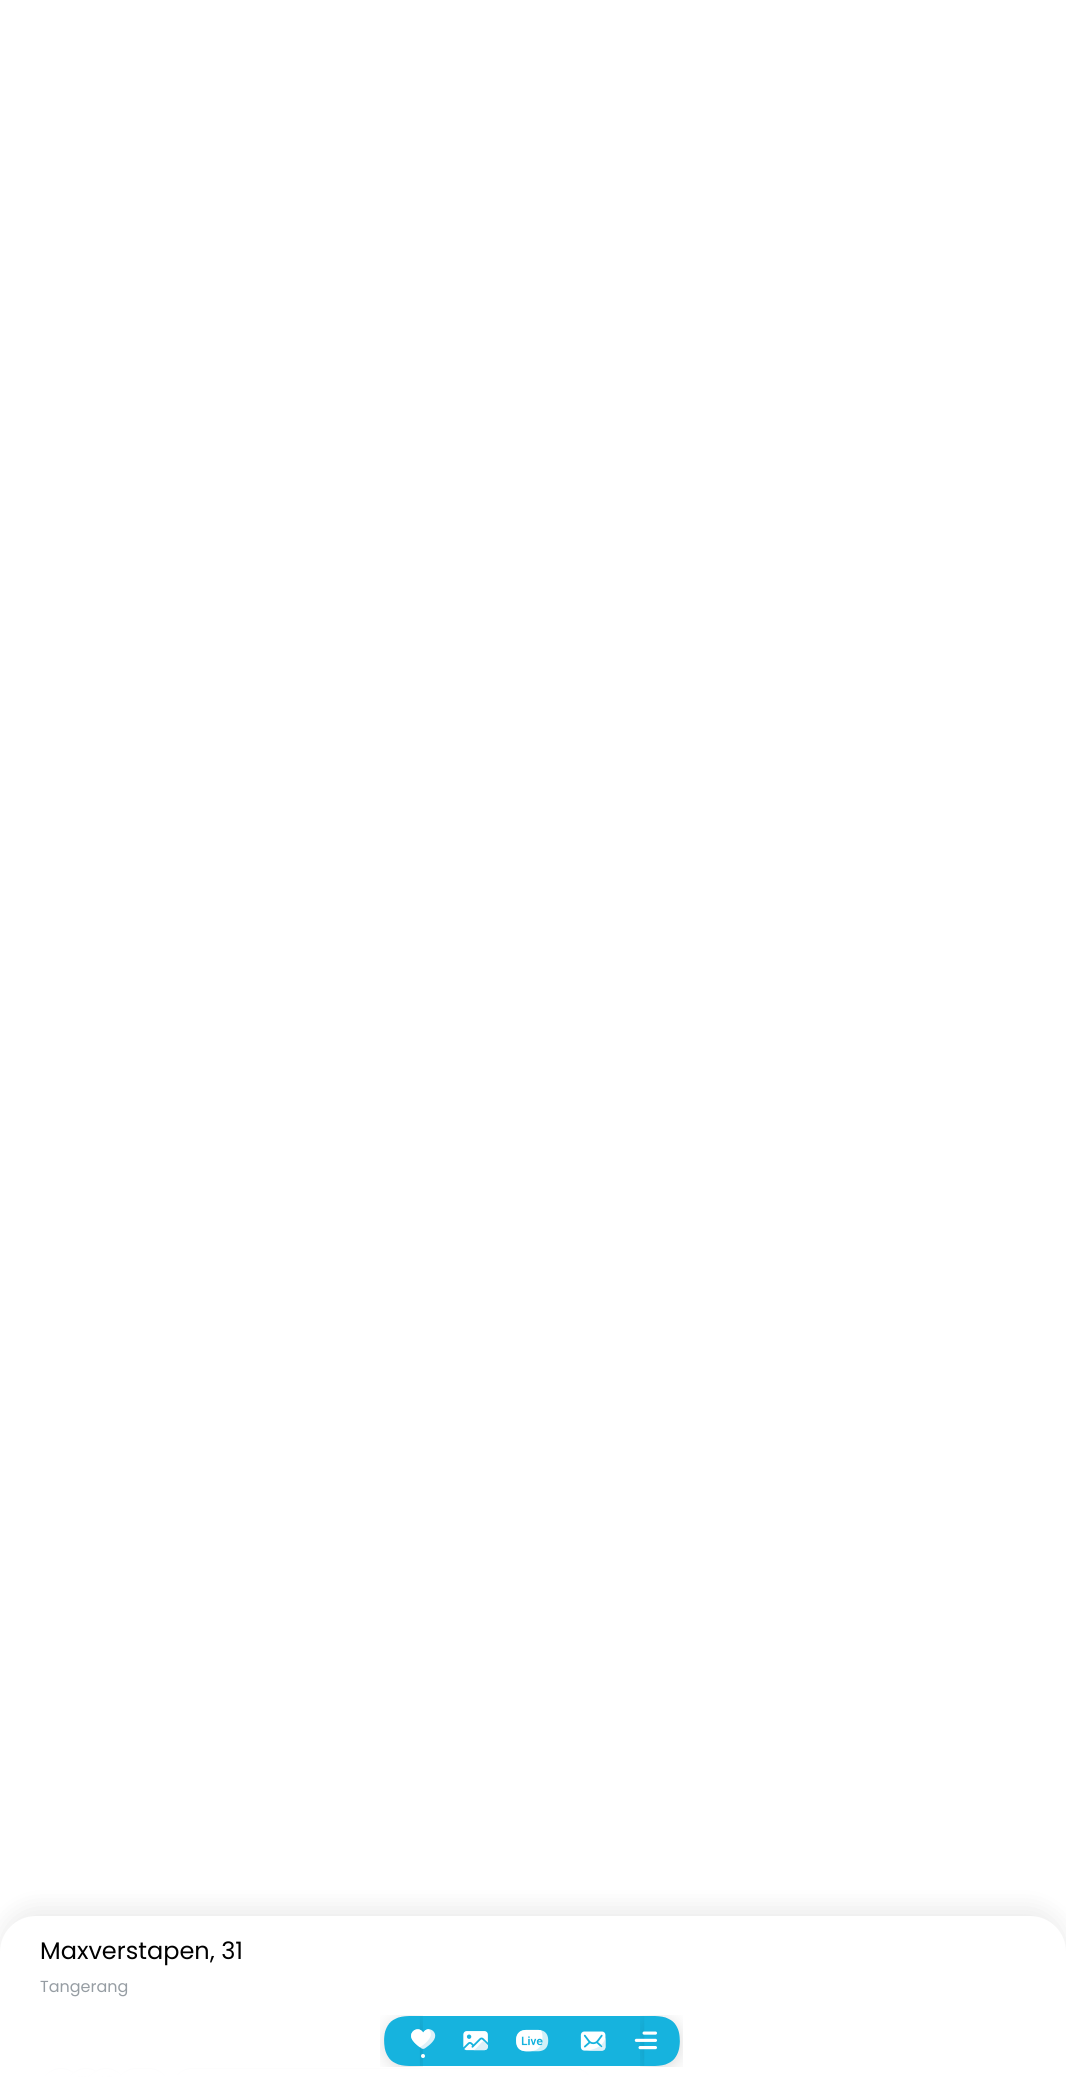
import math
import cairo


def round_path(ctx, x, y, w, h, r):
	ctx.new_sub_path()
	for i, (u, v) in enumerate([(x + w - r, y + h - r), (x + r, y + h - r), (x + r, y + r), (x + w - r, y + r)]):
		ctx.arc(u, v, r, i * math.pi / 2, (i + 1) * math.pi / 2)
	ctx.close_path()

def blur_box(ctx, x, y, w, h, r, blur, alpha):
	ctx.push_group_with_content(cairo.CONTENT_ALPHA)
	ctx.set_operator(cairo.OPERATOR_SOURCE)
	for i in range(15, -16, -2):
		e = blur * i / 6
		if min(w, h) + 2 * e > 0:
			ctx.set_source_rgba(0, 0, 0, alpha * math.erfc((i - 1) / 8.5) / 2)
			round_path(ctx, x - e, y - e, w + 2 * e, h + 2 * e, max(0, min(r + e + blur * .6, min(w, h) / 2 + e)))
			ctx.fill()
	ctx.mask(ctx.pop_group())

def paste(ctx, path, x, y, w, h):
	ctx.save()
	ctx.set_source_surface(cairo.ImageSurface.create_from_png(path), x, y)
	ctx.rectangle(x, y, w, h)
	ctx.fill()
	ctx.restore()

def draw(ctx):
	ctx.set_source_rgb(1, 1, 1)
	ctx.paint()
	ctx.set_source_rgb(0, 0, 0)
	blur_box(ctx, 0, 1908, 1066, 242, 36, 12, 0.08)
	ctx.set_source_rgb(1, 1, 1)
	ctx.new_path()
	ctx.move_to(36, 1916)
	ctx.line_to(1030, 1916)
	ctx.curve_to(1050, 1916, 1066, 1932, 1066, 1952)
	ctx.line_to(1066, 2078)
	ctx.line_to(0, 2078)
	ctx.line_to(0, 1952)
	ctx.curve_to(0, 1932, 16, 1916, 36, 1916)
	ctx.close_path()
	ctx.fill()
	ctx.select_font_face('Poppins')
	ctx.set_font_size(24)
	ctx.set_source_rgb(0, 0, 0)
	ctx.move_to(40, 1959)
	ctx.show_text('Maxverstapen')
	ctx.move_to(210, 1959)
	ctx.show_text(', 31')
	ctx.set_font_size(16)
	ctx.set_source_rgb(0.588, 0.616, 0.639)
	ctx.move_to(40, 1992)
	ctx.show_text('Tangerang')
	round_path(ctx, 40.5, 2068.5, 41, 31, 20.5)
	ctx.set_source_rgb(0.843, 0.859, 0.871)
	ctx.set_line_width(1)
	ctx.stroke()
	ctx.set_source_rgb(1, 1, 1)
	ctx.new_path()
	ctx.move_to(86, 2068)
	ctx.curve_to(97.5, 2068, 107, 2077.5, 107, 2089)
	ctx.line_to(107, 2078)
	ctx.line_to(65, 2078)
	ctx.line_to(65, 2089)
	ctx.curve_to(65, 2077.5, 74.5, 2068, 86, 2068)
	ctx.close_path()
	ctx.fill()
	round_path(ctx, 65.5, 2068.5, 41, 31, 20.5)
	ctx.set_source_rgb(0.843, 0.859, 0.871)
	ctx.stroke()
	paste(ctx, 'media/1.png', 77, 2075, 14, 2)
	ctx.set_source_rgb(1, 1, 1)
	ctx.new_path()
	ctx.move_to(106, 2068)
	ctx.curve_to(117.5, 2068, 127, 2077.5, 127, 2089)
	ctx.line_to(127, 2078)
	ctx.line_to(85, 2078)
	ctx.line_to(85, 2089)
	ctx.curve_to(85, 2077.5, 94.5, 2068, 106, 2068)
	ctx.close_path()
	ctx.fill()
	round_path(ctx, 85.5, 2068.5, 41, 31, 20.5)
	ctx.set_source_rgb(0.843, 0.859, 0.871)
	ctx.stroke()
	paste(ctx, 'media/2.png', 100, 2075, 12, 2)
	ctx.set_source_rgb(1, 1, 1)
	ctx.new_path()
	ctx.move_to(136, 2068)
	ctx.line_to(149, 2068)
	ctx.curve_to(160.5, 2068, 170, 2077.5, 170, 2089)
	ctx.line_to(170, 2078)
	ctx.line_to(115, 2078)
	ctx.line_to(115, 2089)
	ctx.curve_to(115, 2077.5, 124.5, 2068, 136, 2068)
	ctx.close_path()
	ctx.fill()
	round_path(ctx, 115.5, 2068.5, 54, 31, 20.5)
	ctx.set_source_rgb(0.843, 0.859, 0.871)
	ctx.stroke()
	round_path(ctx, 172.5, 2068.5, 421, 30, 19.5)
	ctx.stroke()
	gradient = cairo.LinearGradient(533, 1998, 533, 2078)
	gradient.add_color_stop_rgba(0, 1, 1, 1, 0.5)
	gradient.add_color_stop_rgba(1, 1, 1, 1, 1)
	ctx.set_source(gradient)
	ctx.rectangle(43, 2068, 549, 10)
	ctx.fill()
	ctx.set_source_rgb(0.086, 0.702, 0.871)
	round_path(ctx, 410, 2016, 247, 50, 4)
	ctx.fill()
	paste(ctx, 'media/3.png', 380, 2015, 43, 52)
	paste(ctx, 'media/4.png', 411, 2029, 25, 20)
	ctx.set_source_rgb(1, 1, 1)
	ctx.arc(423, 2056, 2, 0, 2 * math.pi)
	ctx.fill()
	paste(ctx, 'media/5.png', 463, 2031, 25, 20)
	paste(ctx, 'media/6.png', 516, 2029, 33, 23)
	paste(ctx, 'media/7.png', 580, 2031, 26, 20)
	paste(ctx, 'media/9.png', 640, 2015, 43, 52)
	paste(ctx, 'media/8.png', 634, 2031, 23, 19)


surface = cairo.ImageSurface(cairo.FORMAT_RGB24, 1066, 2078)
ctx = cairo.Context(surface)
options = cairo.FontOptions()
options.set_hint_metrics(cairo.HINT_METRICS_OFF)
options.set_hint_style(cairo.HINT_STYLE_NONE)
ctx.set_font_options(options)
ctx.set_miter_limit(4)
draw(ctx)
surface.write_to_png('image.png')
